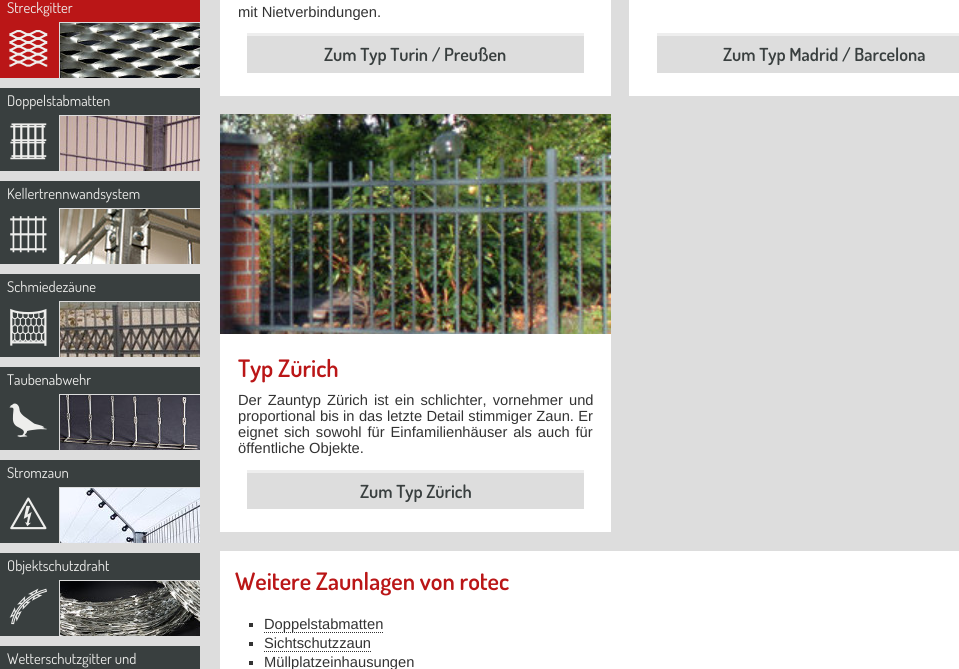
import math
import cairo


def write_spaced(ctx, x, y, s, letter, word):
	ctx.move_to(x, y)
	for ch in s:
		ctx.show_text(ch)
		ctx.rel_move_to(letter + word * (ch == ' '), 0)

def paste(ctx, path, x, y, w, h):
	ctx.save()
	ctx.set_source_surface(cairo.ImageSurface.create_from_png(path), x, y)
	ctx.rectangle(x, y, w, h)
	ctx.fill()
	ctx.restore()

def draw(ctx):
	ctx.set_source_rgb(0.867, 0.867, 0.867)
	ctx.paint()
	ctx.set_source_rgb(0.729, 0.086, 0.09)
	ctx.rectangle(0, 0, 200, 78)
	ctx.fill()
	ctx.select_font_face('Dosis')
	ctx.set_font_size(14.7)
	ctx.set_source_rgb(0.933, 0.933, 0.925)
	ctx.move_to(7, 13)
	ctx.show_text('Streckgitter')
	paste(ctx, 'media/1.png', 9, 30, 39, 37)
	paste(ctx, 'media/2.png', 60, 23, 140, 55)
	ctx.set_source_rgb(0.867, 0.867, 0.867)
	ctx.rectangle(59, 22, 141, 1)
	ctx.rectangle(59, 22, 1, 56)
	ctx.fill()
	ctx.set_source_rgb(0.224, 0.247, 0.247)
	ctx.rectangle(0, 88, 200, 83)
	ctx.fill()
	ctx.set_source_rgb(0.933, 0.933, 0.925)
	ctx.move_to(7, 106)
	ctx.show_text('Doppelstabmatten')
	paste(ctx, 'media/3.png', 10, 123, 37, 37)
	paste(ctx, 'media/4.png', 60, 116, 140, 55)
	ctx.set_source_rgb(0.867, 0.867, 0.867)
	ctx.rectangle(59, 115, 141, 1)
	ctx.rectangle(59, 115, 1, 56)
	ctx.fill()
	ctx.set_source_rgb(0.224, 0.247, 0.247)
	ctx.rectangle(0, 181, 200, 83)
	ctx.fill()
	ctx.set_source_rgb(0.933, 0.933, 0.925)
	ctx.move_to(7, 199)
	ctx.show_text('Kellertrennwandsystem')
	paste(ctx, 'media/5.png', 10, 216, 37, 37)
	paste(ctx, 'media/6.png', 60, 209, 140, 55)
	ctx.set_source_rgb(0.867, 0.867, 0.867)
	ctx.rectangle(59, 208, 141, 1)
	ctx.rectangle(59, 208, 1, 56)
	ctx.fill()
	ctx.set_source_rgb(0.224, 0.247, 0.247)
	ctx.rectangle(0, 274, 200, 83)
	ctx.fill()
	ctx.set_source_rgb(0.933, 0.933, 0.925)
	ctx.move_to(7, 292)
	ctx.show_text('Schmiedezäune')
	paste(ctx, 'media/7.png', 10, 308, 37, 38)
	paste(ctx, 'media/8.png', 60, 302, 140, 55)
	ctx.set_source_rgb(0.867, 0.867, 0.867)
	ctx.rectangle(59, 301, 141, 1)
	ctx.rectangle(59, 301, 1, 56)
	ctx.fill()
	ctx.set_source_rgb(0.224, 0.247, 0.247)
	ctx.rectangle(0, 367, 200, 83)
	ctx.fill()
	ctx.set_source_rgb(0.933, 0.933, 0.925)
	ctx.move_to(7, 385)
	ctx.show_text('Taubenabwehr')
	paste(ctx, 'media/9.png', 9, 403, 38, 35)
	paste(ctx, 'media/10.png', 60, 395, 140, 55)
	ctx.set_source_rgb(0.867, 0.867, 0.867)
	ctx.rectangle(59, 394, 141, 1)
	ctx.rectangle(59, 394, 1, 56)
	ctx.fill()
	ctx.set_source_rgb(0.224, 0.247, 0.247)
	ctx.rectangle(0, 460, 200, 83)
	ctx.fill()
	ctx.set_source_rgb(0.933, 0.933, 0.925)
	ctx.move_to(7, 478)
	ctx.show_text('Stromzaun')
	paste(ctx, 'media/11.png', 10, 497, 37, 33)
	paste(ctx, 'media/12.png', 60, 488, 140, 55)
	ctx.set_source_rgb(0.867, 0.867, 0.867)
	ctx.rectangle(59, 487, 141, 1)
	ctx.rectangle(59, 487, 1, 56)
	ctx.fill()
	ctx.set_source_rgb(0.224, 0.247, 0.247)
	ctx.rectangle(0, 553, 200, 83)
	ctx.fill()
	ctx.set_source_rgb(0.933, 0.933, 0.925)
	ctx.move_to(7, 571)
	ctx.show_text('Objektschutzdraht')
	paste(ctx, 'media/13.png', 9, 588, 38, 37)
	paste(ctx, 'media/14.png', 60, 581, 140, 55)
	ctx.set_source_rgb(0.867, 0.867, 0.867)
	ctx.rectangle(59, 580, 141, 1)
	ctx.rectangle(59, 580, 1, 56)
	ctx.fill()
	ctx.set_source_rgb(0.224, 0.247, 0.247)
	ctx.rectangle(0, 646, 200, 23)
	ctx.fill()
	ctx.set_source_rgb(0.933, 0.933, 0.925)
	ctx.move_to(7, 664)
	ctx.show_text('Wetterschutzgitter und')
	ctx.set_source_rgb(1, 1, 1)
	ctx.rectangle(220, 0, 391, 96)
	ctx.fill()
	ctx.select_font_face('Liberation Sans')
	ctx.set_source_rgb(0.2, 0.2, 0.2)
	ctx.move_to(238, 17)
	ctx.show_text('mit Nietverbindungen.')
	ctx.set_source_rgb(0.867, 0.867, 0.867)
	ctx.rectangle(247, 36, 337, 37)
	ctx.fill()
	ctx.set_source_rgb(0.933, 0.933, 0.933)
	ctx.rectangle(247, 33, 337, 3)
	ctx.fill()
	ctx.select_font_face('Dosis SemiBold')
	ctx.set_font_size(18)
	ctx.set_source_rgb(0.224, 0.247, 0.247)
	ctx.move_to(324, 61)
	ctx.show_text('Zum Typ Turin / Preußen')
	ctx.set_source_rgb(1, 1, 1)
	ctx.rectangle(629, 0, 330, 96)
	ctx.fill()
	ctx.set_source_rgb(0.867, 0.867, 0.867)
	ctx.rectangle(657, 36, 302, 37)
	ctx.fill()
	ctx.set_source_rgb(0.933, 0.933, 0.933)
	ctx.rectangle(657, 33, 302, 3)
	ctx.fill()
	ctx.set_source_rgb(0.224, 0.247, 0.247)
	ctx.move_to(723, 61)
	ctx.show_text('Zum Typ Madrid / Barcelona')
	ctx.set_source_rgb(1, 1, 1)
	ctx.rectangle(220, 334, 391, 198)
	ctx.fill()
	paste(ctx, 'media/15.png', 220, 114, 391, 220)
	ctx.set_font_size(24)
	ctx.set_source_rgb(0.729, 0.086, 0.09)
	ctx.move_to(238, 377)
	ctx.show_text('Typ Zürich')
	ctx.select_font_face('Liberation Sans')
	ctx.set_font_size(14.7)
	ctx.set_source_rgb(0.2, 0.2, 0.2)
	write_spaced(ctx, 238, 405, 'Der Zauntyp Zürich ist ein schlichter, vornehmer und', 0, 2)
	write_spaced(ctx, 238, 421, 'proportional bis in das letzte Detail stimmiger Zaun. Er', 0, 0.25)
	write_spaced(ctx, 238, 437, 'eignet sich sowohl für Einfamilienhäuser als auch für', 0, 1.75)
	ctx.move_to(238, 453)
	ctx.show_text('öffentliche Objekte.')
	ctx.set_source_rgb(0.867, 0.867, 0.867)
	ctx.rectangle(247, 473, 337, 36)
	ctx.fill()
	ctx.set_source_rgb(0.933, 0.933, 0.933)
	ctx.rectangle(247, 470, 337, 3)
	ctx.fill()
	ctx.select_font_face('Dosis SemiBold')
	ctx.set_font_size(18)
	ctx.set_source_rgb(0.224, 0.247, 0.247)
	ctx.move_to(360, 498)
	ctx.show_text('Zum Typ Zürich')
	ctx.set_source_rgb(1, 1, 1)
	ctx.rectangle(220, 551, 739, 118)
	ctx.fill()
	ctx.set_font_size(24)
	ctx.set_source_rgb(0.729, 0.086, 0.09)
	ctx.move_to(235, 590)
	ctx.show_text('Weitere Zaunlagen von rotec')
	ctx.set_source_rgb(0.2, 0.2, 0.2)
	ctx.rectangle(249, 623, 4, 4)
	ctx.fill()
	ctx.new_path()
	ctx.move_to(264, 632.5)
	ctx.line_to(383, 632.5)
	ctx.set_line_width(1)
	ctx.set_dash([1, 1])
	ctx.stroke()
	ctx.select_font_face('Liberation Sans')
	ctx.set_font_size(14.7)
	ctx.move_to(264, 629)
	ctx.show_text('Doppelstabmatten')
	ctx.rectangle(249, 642, 4, 4)
	ctx.fill()
	ctx.move_to(264, 648)
	ctx.show_text('Sichtschutzzaun')
	ctx.new_path()
	ctx.move_to(264, 651.5)
	ctx.line_to(371, 651.5)
	ctx.stroke()
	ctx.rectangle(249, 661, 4, 4)
	ctx.fill()
	ctx.move_to(264, 667)
	ctx.show_text('Müllplatzeinhausungen')


surface = cairo.ImageSurface(cairo.FORMAT_RGB24, 959, 669)
ctx = cairo.Context(surface)
options = cairo.FontOptions()
options.set_hint_metrics(cairo.HINT_METRICS_OFF)
options.set_hint_style(cairo.HINT_STYLE_NONE)
ctx.set_font_options(options)
ctx.set_miter_limit(4)
draw(ctx)
surface.write_to_png('image.png')
